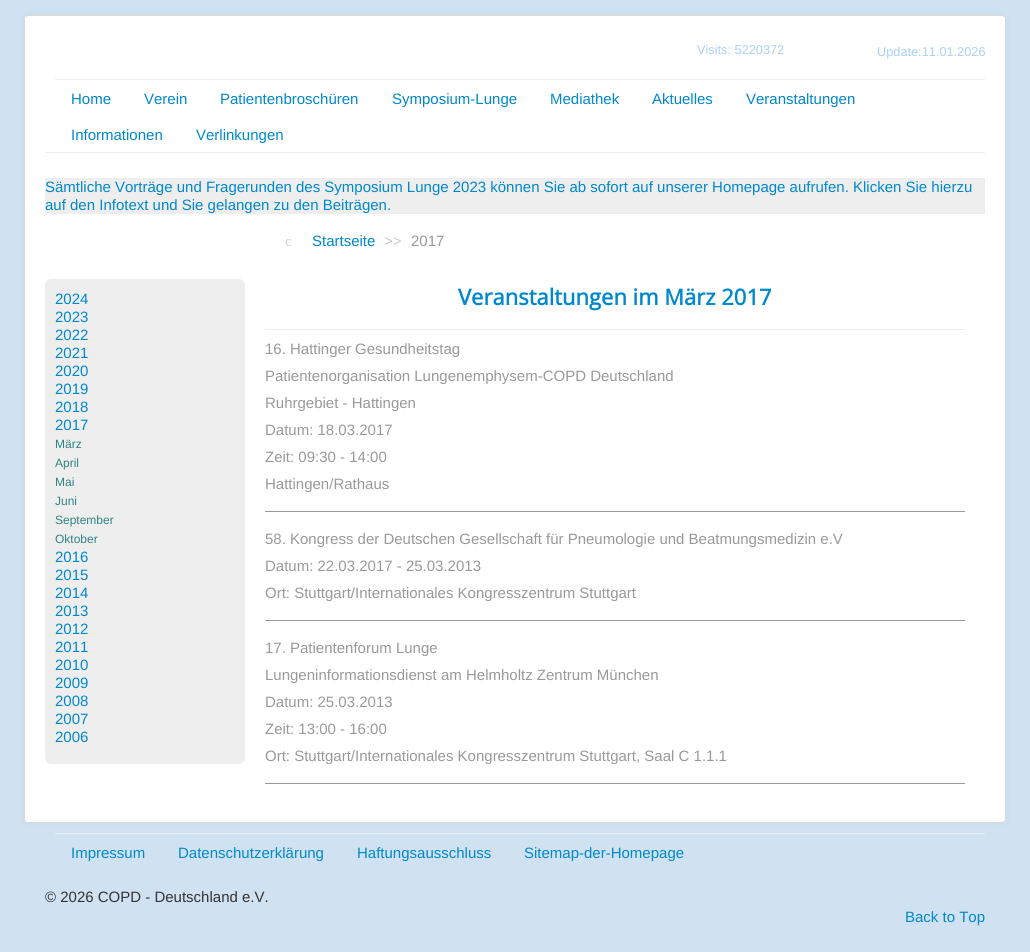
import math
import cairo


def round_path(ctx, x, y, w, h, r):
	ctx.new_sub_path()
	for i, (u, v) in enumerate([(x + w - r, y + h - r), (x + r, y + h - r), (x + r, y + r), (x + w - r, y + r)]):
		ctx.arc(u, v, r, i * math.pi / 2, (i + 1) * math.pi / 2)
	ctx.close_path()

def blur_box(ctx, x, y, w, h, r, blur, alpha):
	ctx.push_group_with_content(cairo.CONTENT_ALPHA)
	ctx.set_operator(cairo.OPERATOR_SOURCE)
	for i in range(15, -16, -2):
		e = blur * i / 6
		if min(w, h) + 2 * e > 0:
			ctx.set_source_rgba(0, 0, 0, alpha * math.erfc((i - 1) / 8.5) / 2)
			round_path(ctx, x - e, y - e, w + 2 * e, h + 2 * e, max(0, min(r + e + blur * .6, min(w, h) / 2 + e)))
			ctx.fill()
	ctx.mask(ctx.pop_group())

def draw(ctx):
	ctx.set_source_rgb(0.816, 0.886, 0.949)
	ctx.paint()
	ctx.set_source_rgb(0, 0, 0)
	blur_box(ctx, 24, 15, 982, 808, 4, 3, 0.05)
	ctx.set_source_rgb(1, 1, 1)
	round_path(ctx, 24, 15, 982, 808, 4)
	ctx.fill()
	round_path(ctx, 24.5, 15.5, 981, 807, 3.5)
	ctx.set_source_rgba(0, 0, 0, 0.15)
	ctx.set_line_width(1)
	ctx.stroke()
	ctx.select_font_face('Liberation Sans')
	ctx.set_font_size(12.75)
	ctx.set_source_rgb(0.663, 0.816, 0.961)
	ctx.move_to(697, 54)
	ctx.show_text('Visits: 5220372')
	ctx.move_to(877, 56)
	ctx.show_text('Update:11.01.2026')
	ctx.set_source_rgb(0.925, 0.925, 0.925)
	ctx.rectangle(45, 152, 940, 1)
	ctx.fill()
	ctx.set_source_rgb(0.933, 0.933, 0.933)
	ctx.rectangle(55, 79, 930, 1)
	ctx.fill()
	ctx.set_font_size(15)
	ctx.set_source_rgb(0, 0.533, 0.8)
	for x, y, s in [
		(71, 104, 'Home'),
		(144, 104, 'Verein'),
		(220, 104, 'Patientenbroschüren'),
		(392, 104, 'Symposium-Lunge'),
		(550, 104, 'Mediathek'),
		(652, 104, 'Aktuelles'),
		(746, 104, 'Veranstaltungen'),
		(71, 140, 'Informationen'),
		(196, 140, 'Verlinkungen'),
	]:
		ctx.move_to(x, y)
		ctx.show_text(s)
	ctx.set_source_rgb(0.933, 0.933, 0.933)
	ctx.rectangle(45, 178, 940, 36)
	ctx.fill()
	ctx.set_source_rgb(0, 0.533, 0.8)
	ctx.move_to(45, 192)
	ctx.show_text('Sämtliche Vorträge und Fragerunden des Symposium Lunge 2023 können Sie ab sofort auf unserer Homepage aufrufen. Klicken Sie hierzu')
	ctx.move_to(45, 210)
	ctx.show_text('auf den Infotext und Sie gelangen zu den Beiträgen.')
	ctx.set_source_rgb(0.933, 0.933, 0.933)
	round_path(ctx, 45, 279, 200, 485, 6)
	ctx.fill()
	ctx.set_source_rgb(0, 0.533, 0.8)
	for x, y, s in [
		(55, 304, '2024'),
		(55, 322, '2023'),
		(55, 340, '2022'),
		(55, 358, '2021'),
		(55, 376, '2020'),
		(55, 394, '2019'),
		(55, 412, '2018'),
		(55, 430, '2017'),
	]:
		ctx.move_to(x, y)
		ctx.show_text(s)
	ctx.set_font_size(12)
	ctx.set_source_rgb(0.188, 0.514, 0.514)
	for x, y, s in [
		(55, 448, 'März'),
		(55, 467, 'April'),
		(55, 486, 'Mai'),
		(55, 505, 'Juni'),
		(55, 524, 'September'),
		(55, 543, 'Oktober'),
	]:
		ctx.move_to(x, y)
		ctx.show_text(s)
	ctx.set_font_size(15)
	ctx.set_source_rgb(0, 0.533, 0.8)
	for x, y, s in [
		(55, 562, '2016'),
		(55, 580, '2015'),
		(55, 598, '2014'),
		(55, 616, '2013'),
		(55, 634, '2012'),
		(55, 652, '2011'),
		(55, 670, '2010'),
		(55, 688, '2009'),
		(55, 706, '2008'),
		(55, 724, '2007'),
		(55, 742, '2006'),
	]:
		ctx.move_to(x, y)
		ctx.show_text(s)
	ctx.select_font_face('Liberation Serif')
	ctx.set_source_rgb(0.8, 0.8, 0.8)
	ctx.move_to(285, 246)
	ctx.show_text('c')
	ctx.select_font_face('Liberation Sans')
	ctx.set_source_rgb(0, 0.533, 0.8)
	ctx.move_to(312, 246)
	ctx.show_text('Startseite')
	ctx.set_source_rgb(0.8, 0.8, 0.8)
	ctx.move_to(384, 246)
	ctx.show_text('>>')
	ctx.set_source_rgb(0.6, 0.6, 0.6)
	ctx.move_to(411, 246)
	ctx.show_text('2017')
	ctx.set_source_rgb(0.933, 0.933, 0.933)
	ctx.rectangle(265, 329, 700, 1)
	ctx.fill()
	ctx.select_font_face('Open Sans', cairo.FONT_SLANT_NORMAL, cairo.FONT_WEIGHT_BOLD)
	ctx.set_font_size(22)
	ctx.set_source_rgb(0, 0.533, 0.8)
	ctx.move_to(458, 305)
	ctx.show_text('Veranstaltungen im März 2017')
	ctx.select_font_face('Liberation Sans')
	ctx.set_font_size(15)
	ctx.set_source_rgb(0.6, 0.6, 0.6)
	for x, y, s in [
		(265, 354, '16. Hattinger Gesundheitstag'),
		(265, 381, 'Patientenorganisation Lungenemphysem-COPD Deutschland'),
		(265, 408, 'Ruhrgebiet - Hattingen'),
		(265, 435, 'Datum: 18.03.2017'),
		(265, 462, 'Zeit: 09:30 - 14:00'),
		(265, 489, 'Hattingen/Rathaus'),
	]:
		ctx.move_to(x, y)
		ctx.show_text(s)
	ctx.set_source_rgb(0.596, 0.596, 0.596)
	ctx.rectangle(265, 511, 700, 1)
	ctx.fill()
	ctx.set_source_rgb(0.6, 0.6, 0.6)
	for x, y, s in [
		(265, 544, '58. Kongress der Deutschen Gesellschaft für Pneumologie und Beatmungsmedizin e.V'),
		(265, 571, 'Datum: 22.03.2017 - 25.03.2013'),
		(265, 598, 'Ort: Stuttgart/Internationales Kongresszentrum Stuttgart'),
	]:
		ctx.move_to(x, y)
		ctx.show_text(s)
	ctx.set_source_rgb(0.596, 0.596, 0.596)
	ctx.rectangle(265, 620, 700, 1)
	ctx.fill()
	ctx.set_source_rgb(0.6, 0.6, 0.6)
	for x, y, s in [
		(265, 653, '17. Patientenforum Lunge'),
		(265, 680, 'Lungeninformationsdienst am Helmholtz Zentrum München'),
		(265, 707, 'Datum: 25.03.2013'),
		(265, 734, 'Zeit: 13:00 - 16:00'),
		(265, 761, 'Ort: Stuttgart/Internationales Kongresszentrum Stuttgart, Saal C 1.1.1'),
	]:
		ctx.move_to(x, y)
		ctx.show_text(s)
	ctx.set_source_rgb(0.596, 0.596, 0.596)
	ctx.rectangle(265, 783, 700, 1)
	ctx.fill()
	ctx.set_source_rgb(0.933, 0.933, 0.933)
	ctx.rectangle(55, 833, 930, 1)
	ctx.fill()
	ctx.set_source_rgb(0, 0.533, 0.8)
	for x, y, s in [
		(71, 858, 'Impressum'),
		(178, 858, 'Datenschutzerklärung'),
		(357, 858, 'Haftungsausschluss'),
		(524, 858, 'Sitemap-der-Homepage'),
	]:
		ctx.move_to(x, y)
		ctx.show_text(s)
	ctx.set_source_rgb(0.2, 0.2, 0.2)
	ctx.move_to(45, 902)
	ctx.show_text('© 2026 COPD - Deutschland e.V.')
	ctx.set_source_rgb(0, 0.533, 0.8)
	ctx.move_to(905, 922)
	ctx.show_text('Back to Top')


surface = cairo.ImageSurface(cairo.FORMAT_RGB24, 1030, 952)
ctx = cairo.Context(surface)
options = cairo.FontOptions()
options.set_hint_metrics(cairo.HINT_METRICS_OFF)
options.set_hint_style(cairo.HINT_STYLE_NONE)
ctx.set_font_options(options)
ctx.set_miter_limit(4)
draw(ctx)
surface.write_to_png('image.png')
